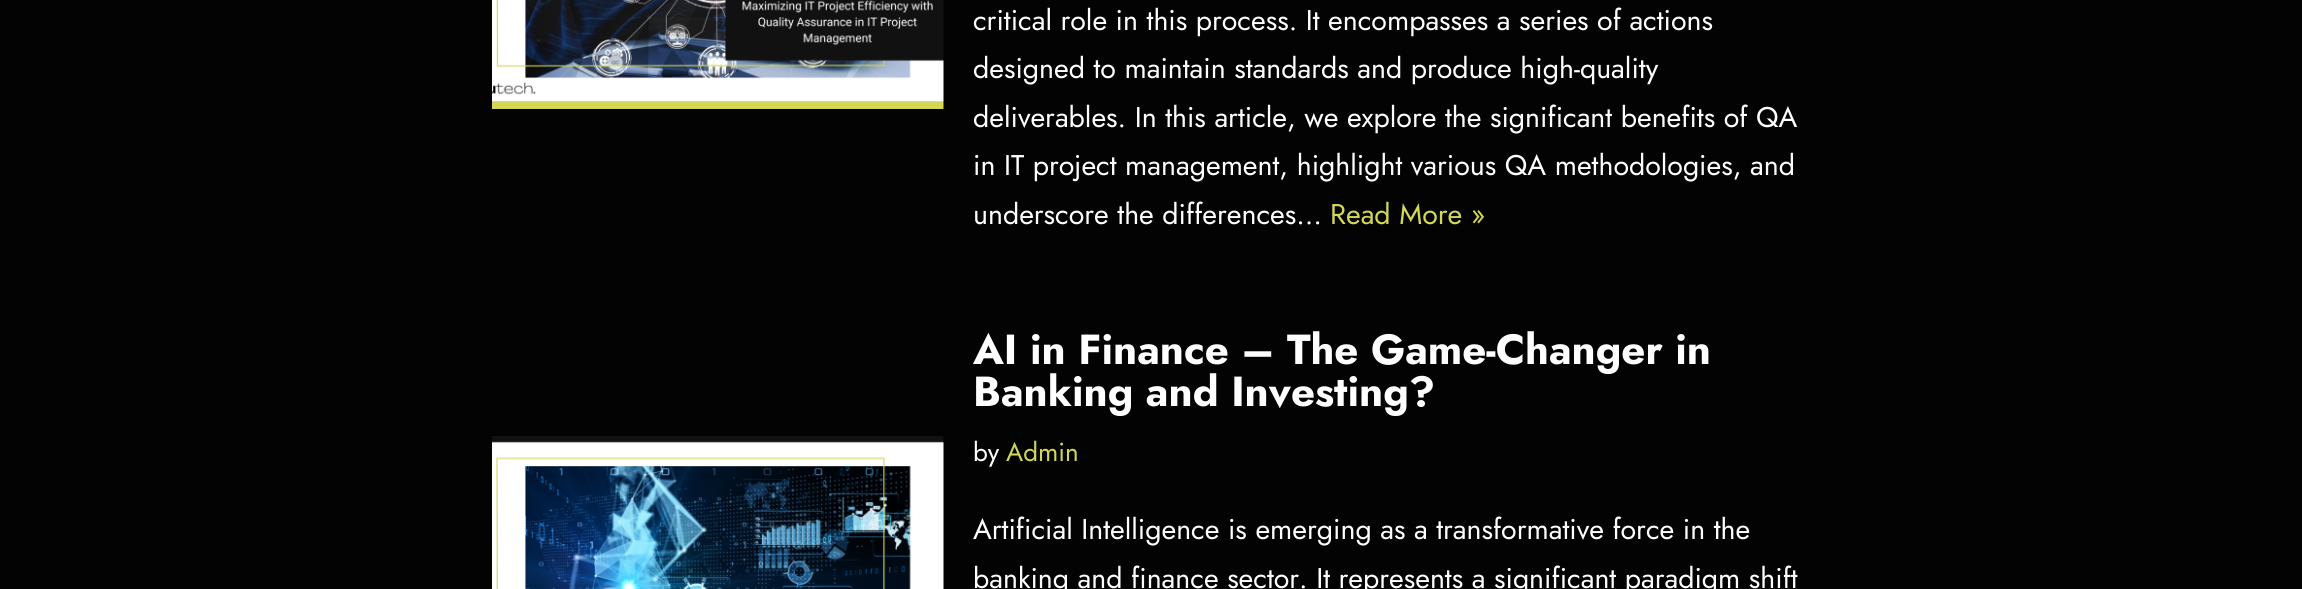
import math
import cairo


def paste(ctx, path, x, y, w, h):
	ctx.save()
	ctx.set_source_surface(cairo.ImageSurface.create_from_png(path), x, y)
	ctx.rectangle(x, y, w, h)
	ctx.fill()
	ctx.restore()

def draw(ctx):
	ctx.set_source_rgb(0.012, 0.012, 0.012)
	ctx.paint()
	paste(ctx, 'media/1.png', 492, 0, 452, 109)
	ctx.select_font_face('Jost')
	ctx.set_font_size(28.5)
	ctx.set_source_rgb(1, 1, 1)
	for x, y, s in [
		(973, 30, 'critical role in this process. It encompasses a series of actions'),
		(973, 78, 'designed to maintain standards and produce high-quality'),
		(973, 127, 'deliverables. In this article, we explore the significant benefits of QA'),
		(973, 175, 'in IT project management, highlight various QA methodologies, and'),
		(973, 224, 'underscore the differences…'),
	]:
		ctx.move_to(x, y)
		ctx.show_text(s)
	ctx.set_source_rgb(0.824, 0.843, 0.333)
	ctx.move_to(1330, 224)
	ctx.show_text('Read More »')
	paste(ctx, 'media/2.png', 492, 436, 452, 153)
	ctx.select_font_face('Jost', cairo.FONT_SLANT_NORMAL, cairo.FONT_WEIGHT_BOLD)
	ctx.set_font_size(42)
	ctx.set_source_rgb(1, 1, 1)
	ctx.move_to(973, 364)
	ctx.show_text('AI in Finance – The Game-Changer in')
	ctx.move_to(973, 406)
	ctx.show_text('Banking and Investing?')
	ctx.select_font_face('Jost')
	ctx.set_font_size(26)
	ctx.move_to(973, 461)
	ctx.show_text('by')
	ctx.set_source_rgb(0.824, 0.843, 0.333)
	ctx.move_to(1006, 461)
	ctx.show_text('Admin')
	ctx.set_font_size(28.5)
	ctx.set_source_rgb(1, 1, 1)
	ctx.move_to(973, 539)
	ctx.show_text('Artificial Intelligence is emerging as a transformative force in the')
	ctx.move_to(973, 588)
	ctx.show_text('banking and finance sector. It represents a significant paradigm shift')


surface = cairo.ImageSurface(cairo.FORMAT_RGB24, 2302, 589)
ctx = cairo.Context(surface)
options = cairo.FontOptions()
options.set_hint_metrics(cairo.HINT_METRICS_OFF)
options.set_hint_style(cairo.HINT_STYLE_NONE)
ctx.set_font_options(options)
ctx.set_miter_limit(4)
draw(ctx)
surface.write_to_png('image.png')
